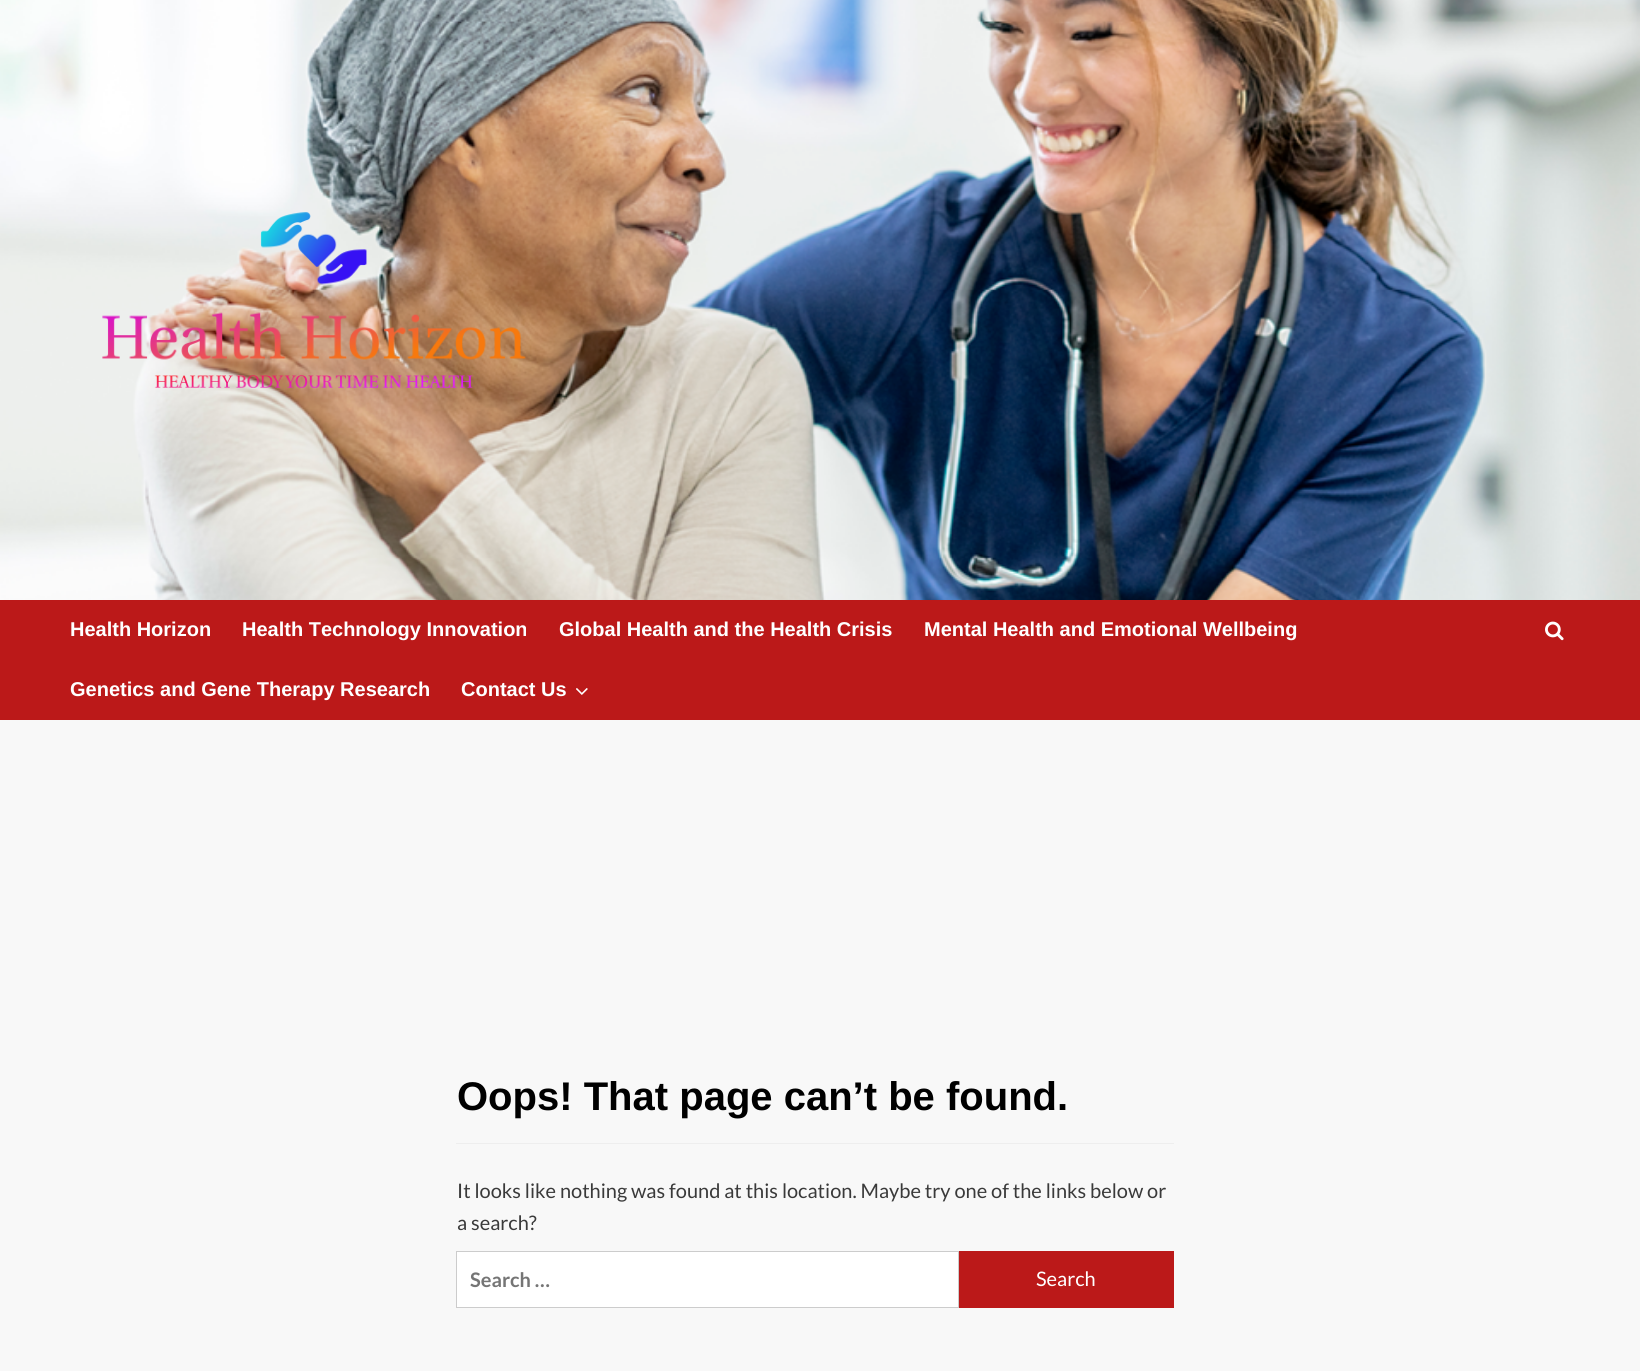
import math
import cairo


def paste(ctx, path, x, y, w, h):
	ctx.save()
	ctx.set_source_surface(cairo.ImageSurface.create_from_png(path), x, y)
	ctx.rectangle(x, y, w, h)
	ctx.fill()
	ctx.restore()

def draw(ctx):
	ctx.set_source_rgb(0.969, 0.969, 0.969)
	ctx.paint()
	paste(ctx, 'media/1.png', 0, 0, 1640, 600)
	paste(ctx, 'media/2.png', 102, 212, 424, 176)
	ctx.set_source_rgb(0.733, 0.098, 0.098)
	ctx.rectangle(0, 600, 1640, 120)
	ctx.fill()
	ctx.select_font_face('Liberation Sans', cairo.FONT_SLANT_NORMAL, cairo.FONT_WEIGHT_BOLD)
	ctx.set_font_size(20)
	ctx.set_source_rgb(1, 1, 1)
	for x, y, s in [
		(70, 636, 'Health Horizon'),
		(242, 636, 'Health Technology Innovation'),
		(559, 636, 'Global Health and the Health Crisis'),
		(924, 636, 'Mental Health and Emotional Wellbeing'),
		(70, 696, 'Genetics and Gene Therapy Research'),
		(461, 696, 'Contact Us'),
	]:
		ctx.move_to(x, y)
		ctx.show_text(s)
	paste(ctx, 'media/3.png', 576, 688, 12, 7)
	paste(ctx, 'media/4.png', 1545, 621, 19, 20)
	ctx.set_source_rgb(0.933, 0.933, 0.933)
	ctx.rectangle(456, 1143, 718, 1)
	ctx.fill()
	ctx.set_font_size(40)
	ctx.set_source_rgb(0, 0, 0)
	ctx.move_to(457, 1110)
	ctx.show_text('Oops! That page can’t be found.')
	ctx.select_font_face('Lato')
	ctx.set_font_size(20)
	ctx.set_source_rgb(0.227, 0.227, 0.227)
	ctx.move_to(457, 1198)
	ctx.show_text('It looks like nothing was found at this location. Maybe try one of the links below or')
	ctx.move_to(457, 1230)
	ctx.show_text('a search?')
	ctx.set_source_rgb(1, 1, 1)
	ctx.rectangle(456.5, 1251.5, 502, 56)
	ctx.fill_preserve()
	ctx.set_source_rgb(0.8, 0.8, 0.8)
	ctx.set_line_width(1)
	ctx.stroke()
	ctx.select_font_face('Lato', cairo.FONT_SLANT_NORMAL, cairo.FONT_WEIGHT_BOLD)
	ctx.set_source_rgb(0.459, 0.459, 0.459)
	ctx.move_to(470, 1287)
	ctx.show_text('Search …')
	ctx.set_source_rgb(0.733, 0.098, 0.098)
	ctx.rectangle(959, 1251, 215, 57)
	ctx.fill()
	ctx.select_font_face('Lato')
	ctx.set_source_rgb(1, 1, 1)
	ctx.move_to(1036, 1286)
	ctx.show_text('Search')


surface = cairo.ImageSurface(cairo.FORMAT_RGB24, 1640, 1371)
ctx = cairo.Context(surface)
options = cairo.FontOptions()
options.set_hint_metrics(cairo.HINT_METRICS_OFF)
options.set_hint_style(cairo.HINT_STYLE_NONE)
ctx.set_font_options(options)
ctx.set_miter_limit(4)
draw(ctx)
surface.write_to_png('image.png')
